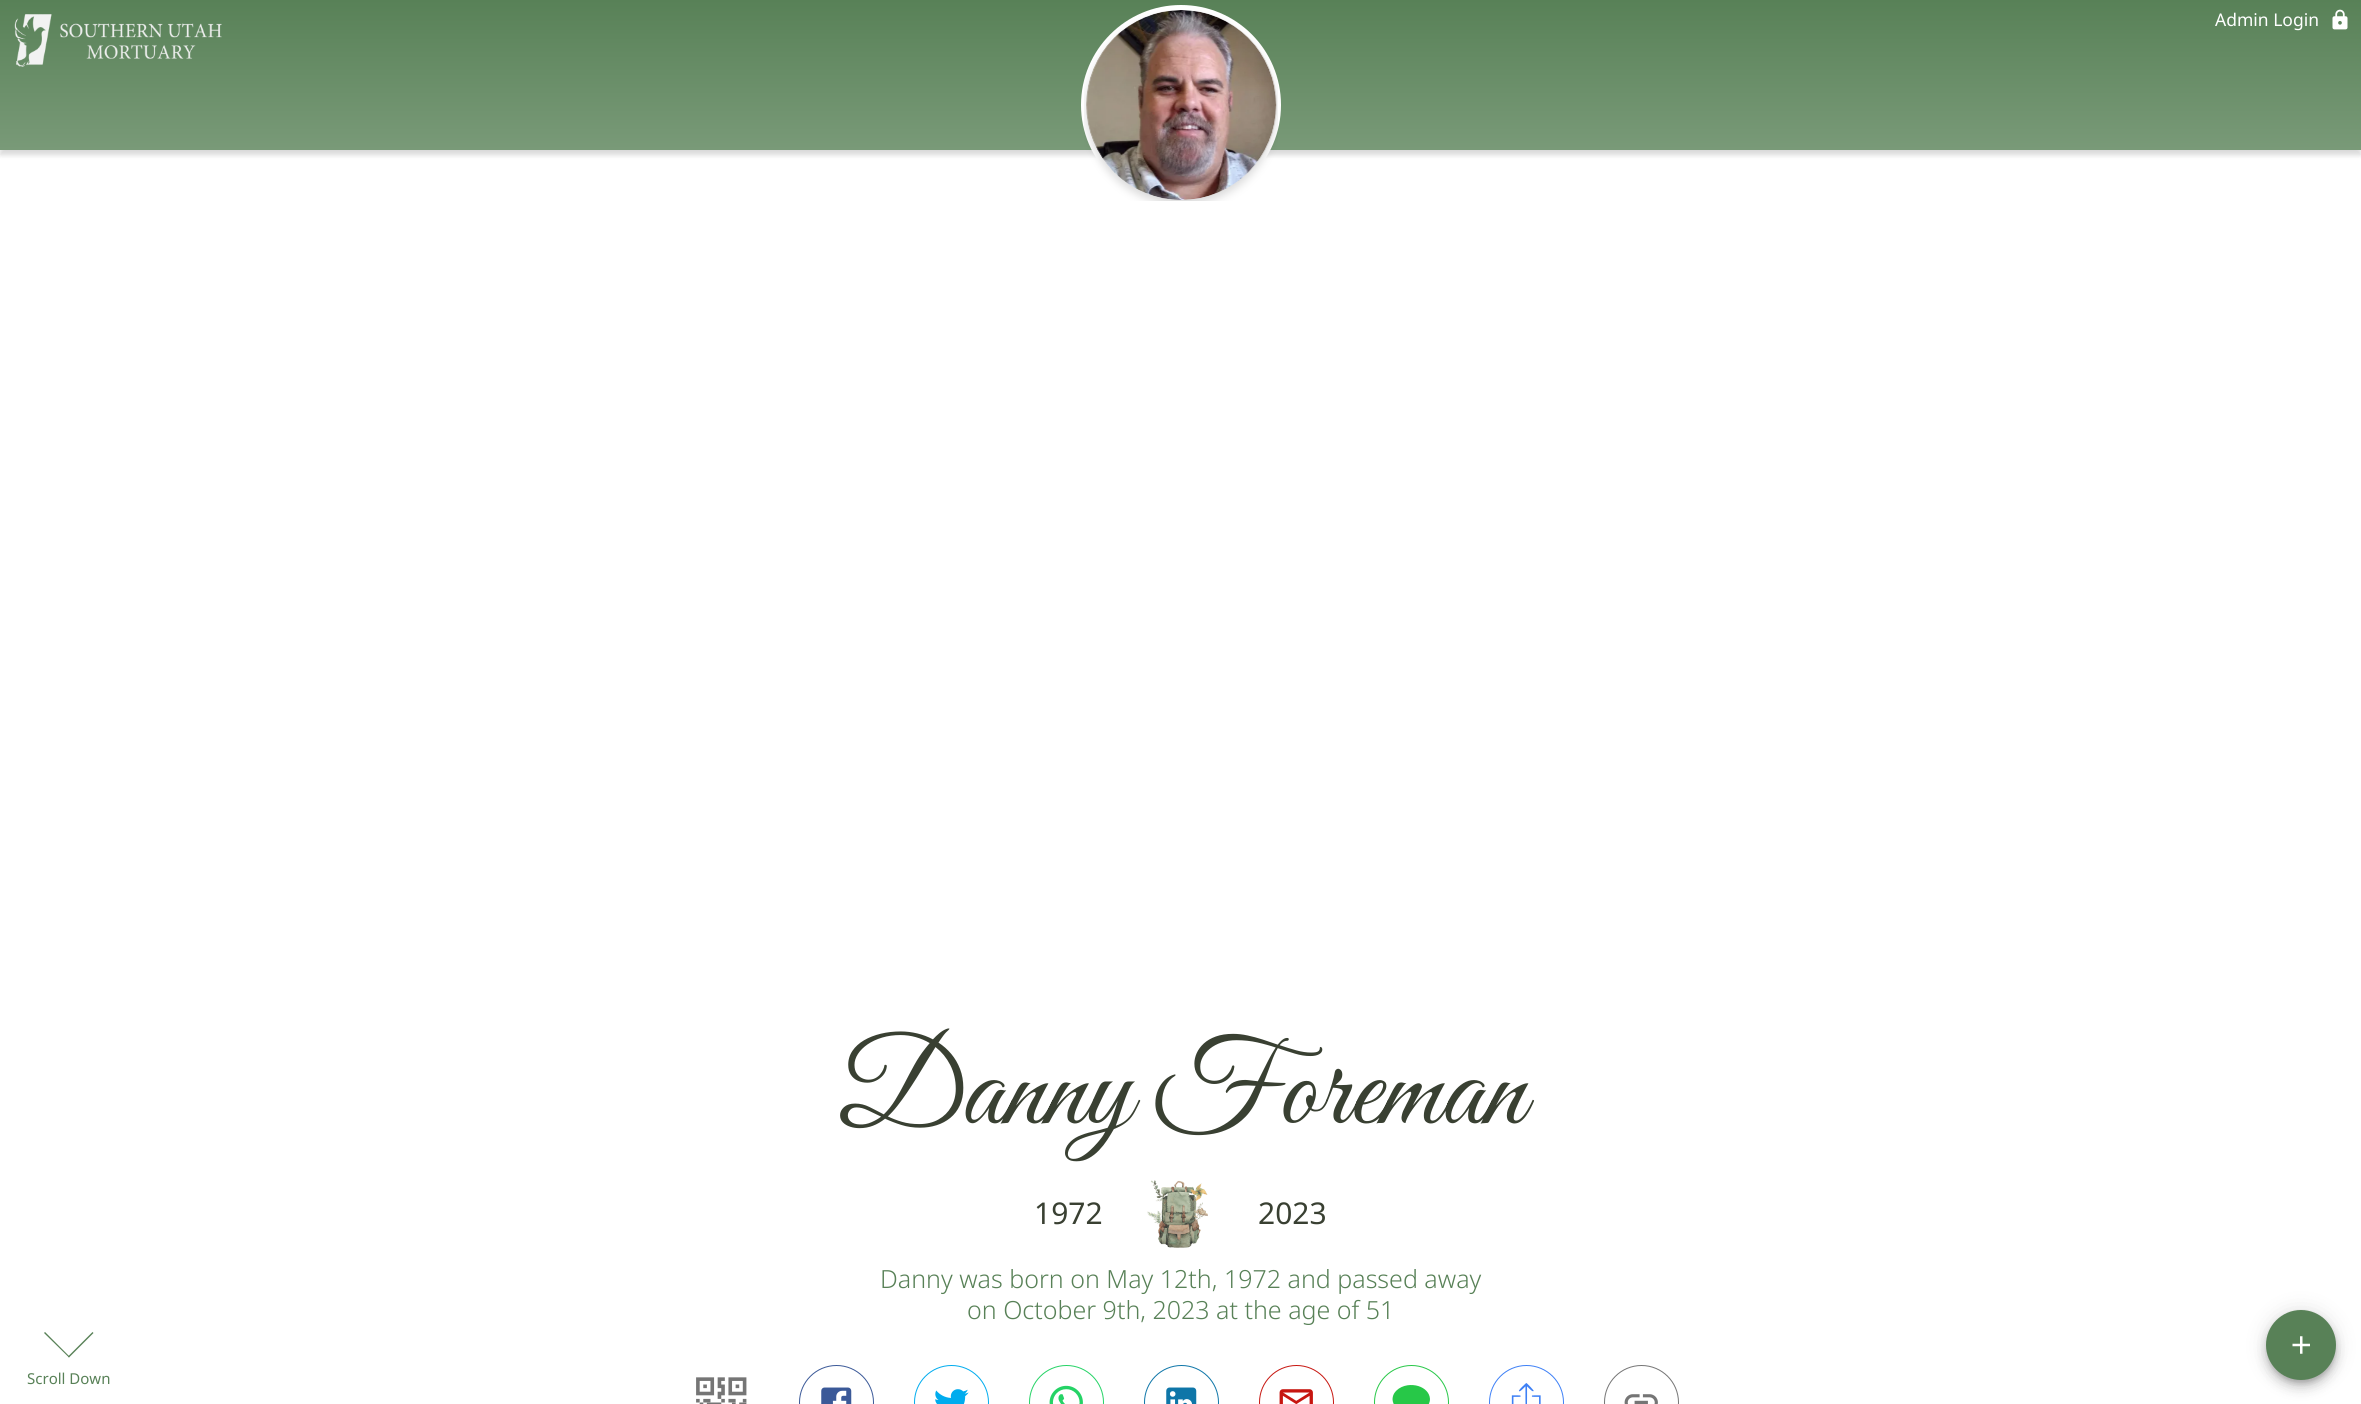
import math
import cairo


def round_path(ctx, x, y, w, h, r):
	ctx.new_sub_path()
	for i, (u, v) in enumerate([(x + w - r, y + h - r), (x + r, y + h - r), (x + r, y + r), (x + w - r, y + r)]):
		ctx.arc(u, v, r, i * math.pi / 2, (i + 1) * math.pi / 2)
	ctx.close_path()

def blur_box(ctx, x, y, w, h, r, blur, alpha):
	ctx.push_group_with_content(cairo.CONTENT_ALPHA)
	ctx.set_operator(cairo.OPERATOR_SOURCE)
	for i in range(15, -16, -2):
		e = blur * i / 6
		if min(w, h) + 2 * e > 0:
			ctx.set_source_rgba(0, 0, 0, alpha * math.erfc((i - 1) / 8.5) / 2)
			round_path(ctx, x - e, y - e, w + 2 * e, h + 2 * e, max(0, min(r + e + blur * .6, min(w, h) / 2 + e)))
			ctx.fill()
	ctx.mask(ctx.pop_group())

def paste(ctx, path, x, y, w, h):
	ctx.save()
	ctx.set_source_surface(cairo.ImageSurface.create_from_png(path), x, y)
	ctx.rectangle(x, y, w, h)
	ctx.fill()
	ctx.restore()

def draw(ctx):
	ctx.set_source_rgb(1, 1, 1)
	ctx.paint()
	ctx.set_source_rgb(0, 0, 0)
	blur_box(ctx, 0, 5, 2361, 150, 0, 2.5, 0.15)
	gradient = cairo.LinearGradient(1181, 0, 1181, 150)
	gradient.add_color_stop_rgba(0, 0.345, 0.506, 0.341, 1)
	gradient.add_color_stop_rgba(1, 0.475, 0.604, 0.471, 1)
	ctx.set_source(gradient)
	ctx.rectangle(0, 0, 2361, 150)
	ctx.fill()
	ctx.set_source_rgb(1, 1, 1)
	ctx.arc(1181, 105, 100, 0, 2 * math.pi)
	ctx.fill()
	paste(ctx, 'media/1.png', 1084, 10, 194, 191)
	paste(ctx, 'media/2.png', 14, 14, 208, 53)
	ctx.select_font_face('Noto Sans')
	ctx.set_font_size(17.5)
	ctx.move_to(2215, 26)
	ctx.show_text('Admin Login')
	paste(ctx, 'media/3.png', 2332, 9, 16, 21)
	ctx.select_font_face('Great Vibes')
	ctx.set_font_size(120)
	ctx.set_source_rgb(0.224, 0.251, 0.196)
	ctx.move_to(836, 1123)
	ctx.show_text('Danny Foreman')
	ctx.select_font_face('Noto Sans')
	ctx.set_font_size(30)
	ctx.move_to(1034, 1224)
	ctx.show_text('1972')
	paste(ctx, 'media/4.png', 1147, 1180, 61, 68)
	ctx.move_to(1258, 1224)
	ctx.show_text('2023')
	ctx.select_font_face('Noto Sans Light')
	ctx.set_font_size(25)
	ctx.set_source_rgb(0.345, 0.506, 0.341)
	ctx.move_to(880, 1288)
	ctx.show_text('Danny was born on May 12th, 1972 and passed away')
	ctx.move_to(967, 1319)
	ctx.show_text('on October 9th, 2023 at the age of 51')
	paste(ctx, 'media/5.png', 696, 1377, 51, 27)
	ctx.arc(836.5, 1402.5, 37, 0, 2 * math.pi)
	ctx.set_source_rgb(0.231, 0.349, 0.596)
	ctx.set_line_width(1)
	ctx.stroke()
	paste(ctx, 'media/6.png', 821, 1387, 31, 17)
	ctx.arc(951.5, 1402.5, 37, 0, 2 * math.pi)
	ctx.set_source_rgb(0, 0.675, 0.933)
	ctx.stroke()
	paste(ctx, 'media/7.png', 935, 1389, 34, 15)
	ctx.arc(1066.5, 1402.5, 37, 0, 2 * math.pi)
	ctx.set_source_rgb(0.145, 0.827, 0.4)
	ctx.stroke()
	paste(ctx, 'media/8.png', 1049, 1385, 34, 19)
	ctx.arc(1181.5, 1402.5, 37, 0, 2 * math.pi)
	ctx.set_source_rgb(0.055, 0.463, 0.659)
	ctx.stroke()
	paste(ctx, 'media/9.png', 1166, 1387, 31, 17)
	ctx.arc(1296.5, 1402.5, 37, 0, 2 * math.pi)
	ctx.set_source_rgb(0.78, 0.086, 0.063)
	ctx.stroke()
	paste(ctx, 'media/10.png', 1279, 1389, 34, 15)
	ctx.arc(1411.5, 1402.5, 37, 0, 2 * math.pi)
	ctx.set_source_rgb(0.153, 0.784, 0.282)
	ctx.stroke()
	paste(ctx, 'media/11.png', 1392, 1385, 38, 19)
	ctx.arc(1526.5, 1402.5, 37, 0, 2 * math.pi)
	ctx.set_source_rgb(0.243, 0.502, 0.961)
	ctx.stroke()
	paste(ctx, 'media/12.png', 1511, 1383, 30, 21)
	ctx.arc(1641.5, 1402.5, 37, 0, 2 * math.pi)
	ctx.set_source_rgb(0.459, 0.459, 0.459)
	ctx.stroke()
	paste(ctx, 'media/13.png', 1624, 1394, 34, 10)
	ctx.set_source_rgb(0.345, 0.506, 0.341)
	ctx.new_path()
	ctx.move_to(68, 1356.5)
	ctx.line_to(92.5, 1332)
	ctx.line_to(93.5, 1333)
	ctx.line_to(69, 1357.5)
	ctx.close_path()
	ctx.fill()
	ctx.new_path()
	ctx.move_to(44, 1333)
	ctx.line_to(45, 1332)
	ctx.line_to(69.5, 1356.5)
	ctx.line_to(69, 1357.5)
	ctx.close_path()
	ctx.fill()
	ctx.select_font_face('Noto Sans')
	ctx.set_font_size(15)
	ctx.move_to(27, 1384)
	ctx.show_text('Scroll Down')
	ctx.set_source_rgb(0, 0, 0)
	blur_box(ctx, 2266, 1311, 70, 70, 35, 11, 0.12)
	blur_box(ctx, 2266, 1318, 70, 70, 35, 6, 0.14)
	blur_box(ctx, 2268, 1315, 67, 68, 33.5, 3, 0.2)
	ctx.set_source_rgb(0.345, 0.506, 0.341)
	ctx.arc(2301, 1345, 35, 0, 2 * math.pi)
	ctx.fill()
	paste(ctx, 'media/14.png', 2292, 1336, 18, 18)


surface = cairo.ImageSurface(cairo.FORMAT_RGB24, 2361, 1404)
ctx = cairo.Context(surface)
options = cairo.FontOptions()
options.set_hint_metrics(cairo.HINT_METRICS_OFF)
options.set_hint_style(cairo.HINT_STYLE_NONE)
ctx.set_font_options(options)
ctx.set_miter_limit(4)
draw(ctx)
surface.write_to_png('image.png')
